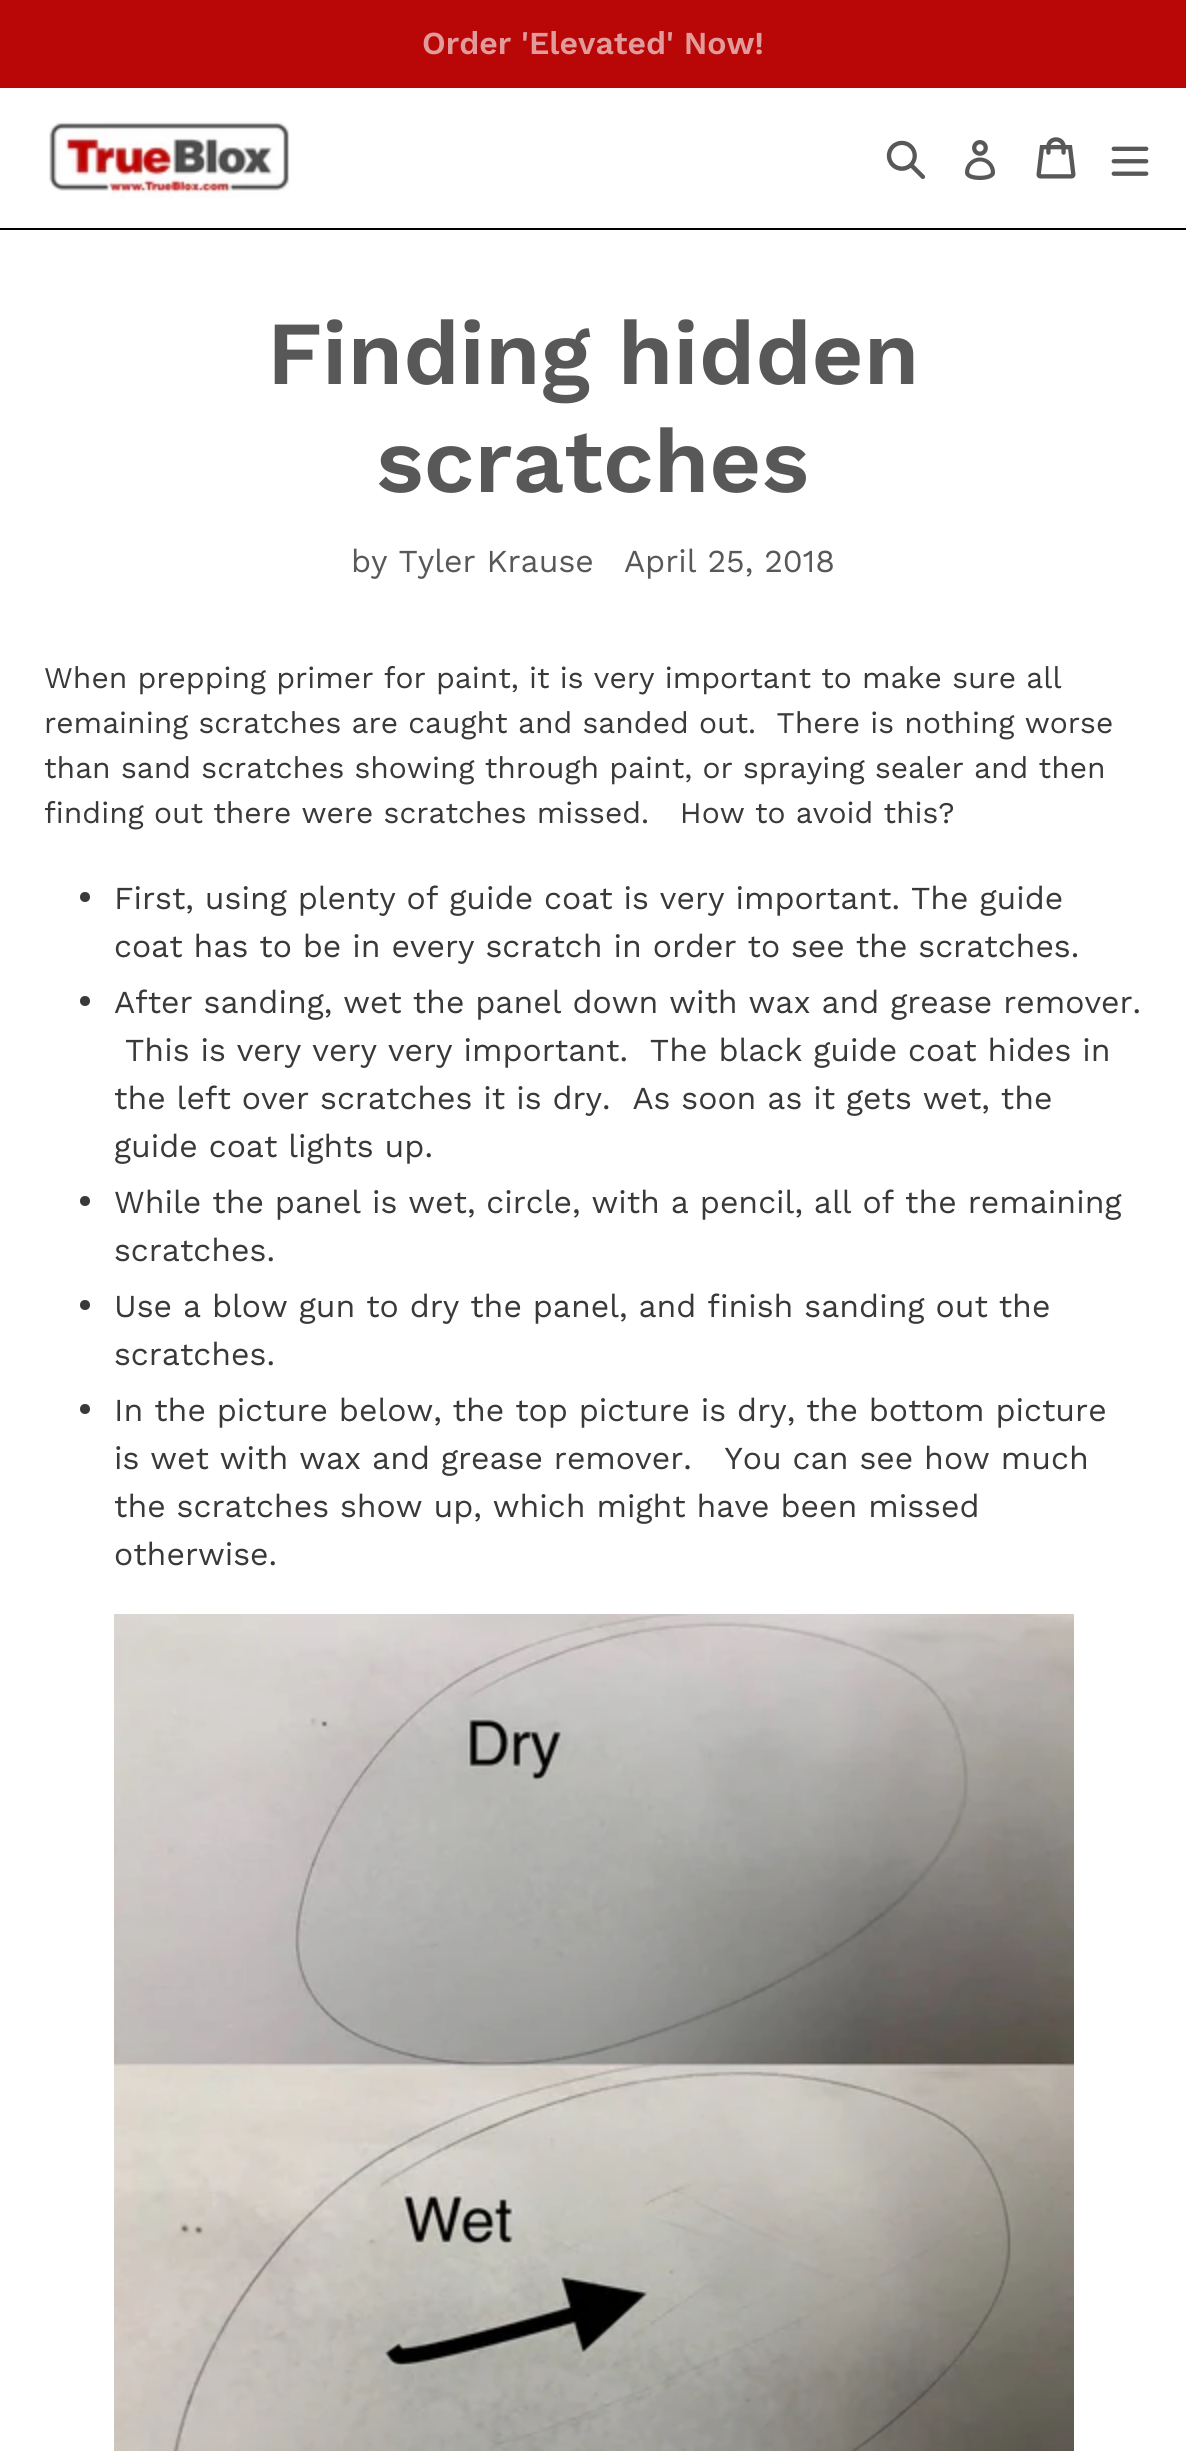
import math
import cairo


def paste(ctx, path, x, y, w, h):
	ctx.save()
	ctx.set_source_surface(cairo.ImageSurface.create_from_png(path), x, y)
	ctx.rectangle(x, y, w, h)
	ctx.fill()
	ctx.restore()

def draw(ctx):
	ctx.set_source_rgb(1, 1, 1)
	ctx.paint()
	ctx.set_source_rgb(0.725, 0.024, 0.024)
	ctx.rectangle(0, 0, 1186, 88)
	ctx.fill()
	ctx.select_font_face('Work Sans SemiBold')
	ctx.set_font_size(32)
	ctx.set_source_rgb(0.886, 0.608, 0.608)
	ctx.move_to(422, 54)
	ctx.show_text('Order \'Elevated\' Now!')
	ctx.set_source_rgb(0, 0, 0)
	ctx.rectangle(0, 228, 1186, 2)
	ctx.fill()
	paste(ctx, 'media/1.png', 49, 121, 241, 77)
	paste(ctx, 'media/2.png', 886, 140, 40, 39)
	paste(ctx, 'media/3.png', 965, 140, 30, 40)
	paste(ctx, 'media/4.png', 1036, 137, 40, 42)
	paste(ctx, 'media/5.png', 1111, 146, 38, 30)
	ctx.set_font_size(90)
	ctx.set_source_rgb(0.345, 0.345, 0.345)
	ctx.move_to(267, 384)
	ctx.show_text('Finding hidden')
	ctx.move_to(376, 492)
	ctx.show_text('scratches')
	ctx.select_font_face('Work Sans')
	ctx.set_font_size(32)
	ctx.move_to(351, 572)
	ctx.show_text('by Tyler Krause')
	ctx.move_to(624, 572)
	ctx.show_text('April 25, 2018')
	ctx.set_font_size(30)
	ctx.set_source_rgb(0.224, 0.224, 0.224)
	for x, y, s in [
		(44, 688, 'When prepping primer for paint, it is very important to make sure all'),
		(44, 733, 'remaining scratches are caught and sanded out.  There is nothing worse'),
		(44, 778, 'than sand scratches showing through paint, or spraying sealer and then'),
		(44, 823, 'finding out there were scratches missed.   How to avoid this?'),
	]:
		ctx.move_to(x, y)
		ctx.show_text(s)
	ctx.new_path()
	ctx.arc(85, 897, 5, 0, 2 * math.pi)
	ctx.fill()
	ctx.set_font_size(32)
	ctx.move_to(114, 909)
	ctx.show_text('First, using plenty of guide coat is very important. The guide')
	ctx.move_to(114, 957)
	ctx.show_text('coat has to be in every scratch in order to see the scratches.')
	ctx.new_path()
	ctx.arc(85, 1001, 5, 0, 2 * math.pi)
	ctx.fill()
	for x, y, s in [
		(114, 1013, 'After sanding, wet the panel down with wax and grease remover.'),
		(125, 1061, 'This is very very very important.  The black guide coat hides in'),
		(114, 1109, 'the left over scratches it is dry.  As soon as it gets wet, the'),
		(114, 1157, 'guide coat lights up.'),
	]:
		ctx.move_to(x, y)
		ctx.show_text(s)
	ctx.new_path()
	ctx.arc(85, 1201, 5, 0, 2 * math.pi)
	ctx.fill()
	ctx.move_to(114, 1213)
	ctx.show_text('While the panel is wet, circle, with a pencil, all of the remaining')
	ctx.move_to(114, 1261)
	ctx.show_text('scratches.')
	ctx.new_path()
	ctx.arc(85, 1305, 5, 0, 2 * math.pi)
	ctx.fill()
	ctx.move_to(114, 1317)
	ctx.show_text('Use a blow gun to dry the panel, and finish sanding out the')
	ctx.move_to(114, 1365)
	ctx.show_text('scratches.')
	ctx.new_path()
	ctx.arc(85, 1409, 5, 0, 2 * math.pi)
	ctx.fill()
	for x, y, s in [
		(114, 1421, 'In the picture below, the top picture is dry, the bottom picture'),
		(114, 1469, 'is wet with wax and grease remover.   You can see how much'),
		(114, 1517, 'the scratches show up, which might have been missed'),
		(114, 1565, 'otherwise.'),
	]:
		ctx.move_to(x, y)
		ctx.show_text(s)
	paste(ctx, 'media/6.png', 114, 1614, 960, 837)


surface = cairo.ImageSurface(cairo.FORMAT_RGB24, 1186, 2451)
ctx = cairo.Context(surface)
options = cairo.FontOptions()
options.set_hint_metrics(cairo.HINT_METRICS_OFF)
options.set_hint_style(cairo.HINT_STYLE_NONE)
ctx.set_font_options(options)
ctx.set_miter_limit(4)
draw(ctx)
surface.write_to_png('image.png')
